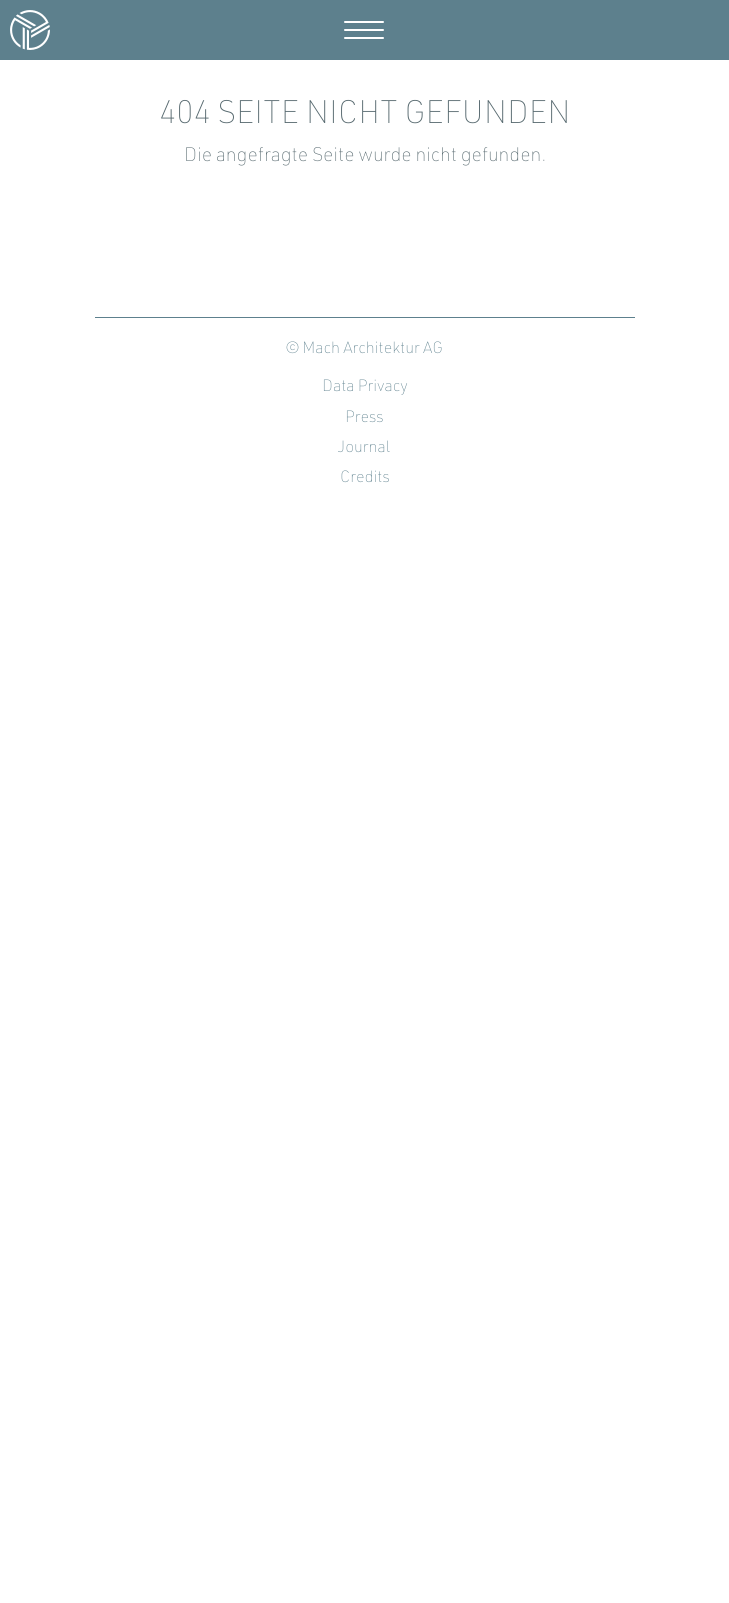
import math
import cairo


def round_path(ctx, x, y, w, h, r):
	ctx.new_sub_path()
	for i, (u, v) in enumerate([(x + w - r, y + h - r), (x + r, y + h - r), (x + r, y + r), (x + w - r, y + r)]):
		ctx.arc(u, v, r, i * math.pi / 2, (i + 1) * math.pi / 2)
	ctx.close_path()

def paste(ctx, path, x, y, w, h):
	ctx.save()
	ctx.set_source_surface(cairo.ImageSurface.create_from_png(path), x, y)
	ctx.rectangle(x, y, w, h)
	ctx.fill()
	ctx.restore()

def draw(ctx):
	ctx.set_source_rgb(1, 1, 1)
	ctx.paint()
	ctx.set_source_rgb(0.365, 0.502, 0.553)
	ctx.rectangle(0, 0, 729, 60)
	ctx.fill()
	paste(ctx, 'media/1.png', 10, 10, 40, 40)
	ctx.set_source_rgb(1, 1, 1)
	round_path(ctx, 344, 29, 40, 2, 1)
	ctx.fill()
	round_path(ctx, 344, 21, 40, 2, 1)
	ctx.fill()
	round_path(ctx, 344, 37, 40, 2, 1)
	ctx.fill()
	ctx.select_font_face('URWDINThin')
	ctx.set_font_size(32)
	ctx.set_source_rgb(0.341, 0.412, 0.435)
	ctx.move_to(159, 123)
	ctx.show_text('404 SEITE NICHT GEFUNDEN')
	ctx.set_font_size(19.25)
	ctx.move_to(184, 161)
	ctx.show_text('Die angefragte Seite wurde nicht gefunden.')
	ctx.set_source_rgb(0.365, 0.502, 0.553)
	ctx.rectangle(95, 317, 540, 1)
	ctx.fill()
	ctx.set_font_size(16)
	for x, y, s in [
		(286, 353, '© Mach Architektur AG'),
		(322, 391, 'Data Privacy'),
		(345, 422, 'Press'),
		(338, 452, 'Journal'),
		(340, 482, 'Credits'),
	]:
		ctx.move_to(x, y)
		ctx.show_text(s)


surface = cairo.ImageSurface(cairo.FORMAT_RGB24, 729, 1603)
ctx = cairo.Context(surface)
options = cairo.FontOptions()
options.set_hint_metrics(cairo.HINT_METRICS_OFF)
options.set_hint_style(cairo.HINT_STYLE_NONE)
ctx.set_font_options(options)
ctx.set_miter_limit(4)
draw(ctx)
surface.write_to_png('image.png')
